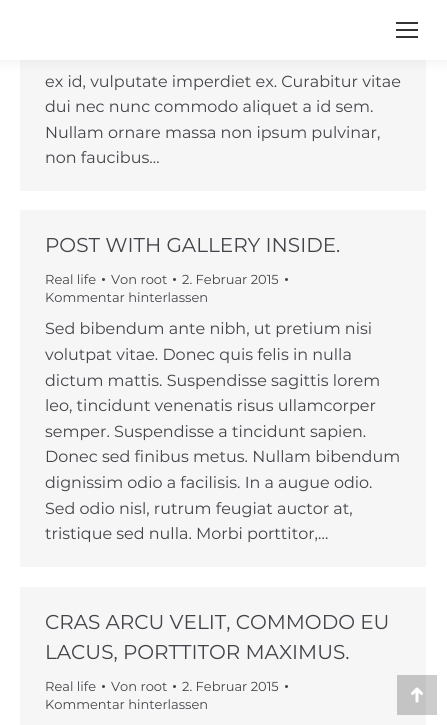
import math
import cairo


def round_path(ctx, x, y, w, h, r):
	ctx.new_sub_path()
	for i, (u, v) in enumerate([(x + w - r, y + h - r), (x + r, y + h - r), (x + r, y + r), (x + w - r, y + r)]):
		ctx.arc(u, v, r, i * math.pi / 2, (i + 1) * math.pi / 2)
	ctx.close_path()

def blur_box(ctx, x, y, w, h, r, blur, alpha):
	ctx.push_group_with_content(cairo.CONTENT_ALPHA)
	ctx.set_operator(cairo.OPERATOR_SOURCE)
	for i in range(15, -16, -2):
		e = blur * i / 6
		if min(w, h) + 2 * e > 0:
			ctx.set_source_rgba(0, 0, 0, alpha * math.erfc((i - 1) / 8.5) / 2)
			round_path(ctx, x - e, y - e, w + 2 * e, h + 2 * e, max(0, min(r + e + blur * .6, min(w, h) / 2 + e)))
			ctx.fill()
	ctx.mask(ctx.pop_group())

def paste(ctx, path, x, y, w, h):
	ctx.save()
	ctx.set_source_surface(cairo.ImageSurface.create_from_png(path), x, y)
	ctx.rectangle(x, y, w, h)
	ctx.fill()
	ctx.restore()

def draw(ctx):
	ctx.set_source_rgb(1, 1, 1)
	ctx.paint()
	ctx.set_source_rgb(0.8, 0.8, 0.8)
	ctx.rectangle(426, 675, 11, 40)
	ctx.fill()
	ctx.set_source_rgb(0.961, 0.961, 0.961)
	ctx.rectangle(20, 60, 406, 131)
	ctx.fill()
	ctx.set_source_rgb(0, 0, 0)
	blur_box(ctx, -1, -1, 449, 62, 0, 7.5, 0.07)
	ctx.set_source_rgb(1, 1, 1)
	ctx.rectangle(0, 0, 447, 60)
	ctx.fill()
	ctx.set_source_rgb(0.2, 0.2, 0.2)
	ctx.rectangle(396, 22, 22, 2)
	ctx.rectangle(396, 29, 22, 2)
	ctx.rectangle(396, 36, 22, 2)
	ctx.fill()
	ctx.select_font_face('Montserrat')
	ctx.set_font_size(16)
	ctx.set_source_rgb(0.271, 0.259, 0.286)
	for x, y, s in [
		(45, 87, 'ex id, vulputate imperdiet ex. Curabitur vitae'),
		(45, 112, 'dui nec nunc commodo aliquet a id sem.'),
		(45, 138, 'Nullam ornare massa non ipsum pulvinar,'),
		(45, 163, 'non faucibus…'),
	]:
		ctx.move_to(x, y)
		ctx.show_text(s)
	ctx.set_source_rgb(0.961, 0.961, 0.961)
	ctx.rectangle(20, 210, 406, 357)
	ctx.fill()
	ctx.set_font_size(20)
	ctx.set_source_rgb(0.271, 0.259, 0.286)
	ctx.move_to(45, 252)
	ctx.show_text('POST WITH GALLERY INSIDE.')
	ctx.set_font_size(13)
	ctx.move_to(45, 284)
	ctx.show_text('Real life')
	ctx.new_path()
	ctx.arc(103.5, 279.5, 1.5, 0, 2 * math.pi)
	ctx.fill()
	ctx.move_to(111, 284)
	ctx.show_text('Von root')
	ctx.new_path()
	ctx.arc(174.5, 279.5, 1.5, 0, 2 * math.pi)
	ctx.fill()
	ctx.move_to(182, 284)
	ctx.show_text('2. Februar 2015')
	ctx.new_path()
	ctx.arc(286.5, 279.5, 1.5, 0, 2 * math.pi)
	ctx.fill()
	ctx.move_to(45, 302)
	ctx.show_text('Kommentar hinterlassen')
	ctx.set_font_size(16)
	for x, y, s in [
		(45, 334, 'Sed bibendum ante nibh, ut pretium nisi'),
		(45, 360, 'volutpat vitae. Donec quis felis in nulla'),
		(45, 386, 'dictum mattis. Suspendisse sagittis lorem'),
		(45, 411, 'leo, tincidunt venenatis risus ullamcorper'),
		(45, 437, 'semper. Suspendisse a tincidunt sapien.'),
		(45, 462, 'Donec sed finibus metus. Nullam bibendum'),
		(45, 488, 'dignissim odio a facilisis. In a augue odio.'),
		(45, 514, 'Sed odio nisl, rutrum feugiat auctor at,'),
		(45, 539, 'tristique sed nulla. Morbi porttitor,…'),
	]:
		ctx.move_to(x, y)
		ctx.show_text(s)
	ctx.set_source_rgb(0.961, 0.961, 0.961)
	ctx.rectangle(20, 587, 406, 138)
	ctx.fill()
	ctx.set_source_rgb(0.769, 0.769, 0.769)
	ctx.rectangle(397, 675, 29, 40)
	ctx.fill()
	ctx.set_font_size(20)
	ctx.set_source_rgb(0.271, 0.259, 0.286)
	ctx.move_to(45, 629)
	ctx.show_text('CRAS ARCU VELIT, COMMODO EU')
	ctx.move_to(45, 659)
	ctx.show_text('LACUS, PORTTITOR MAXIMUS.')
	ctx.set_font_size(13)
	ctx.move_to(45, 691)
	ctx.show_text('Real life')
	ctx.new_path()
	ctx.arc(103.5, 686.5, 1.5, 0, 2 * math.pi)
	ctx.fill()
	ctx.move_to(111, 691)
	ctx.show_text('Von root')
	ctx.new_path()
	ctx.arc(174.5, 686.5, 1.5, 0, 2 * math.pi)
	ctx.fill()
	ctx.move_to(182, 691)
	ctx.show_text('2. Februar 2015')
	ctx.new_path()
	ctx.arc(286.5, 686.5, 1.5, 0, 2 * math.pi)
	ctx.fill()
	ctx.move_to(45, 709)
	ctx.show_text('Kommentar hinterlassen')
	paste(ctx, 'media/1.png', 411, 687, 12, 16)


surface = cairo.ImageSurface(cairo.FORMAT_RGB24, 447, 725)
ctx = cairo.Context(surface)
options = cairo.FontOptions()
options.set_hint_metrics(cairo.HINT_METRICS_OFF)
options.set_hint_style(cairo.HINT_STYLE_NONE)
ctx.set_font_options(options)
ctx.set_miter_limit(4)
draw(ctx)
surface.write_to_png('image.png')
